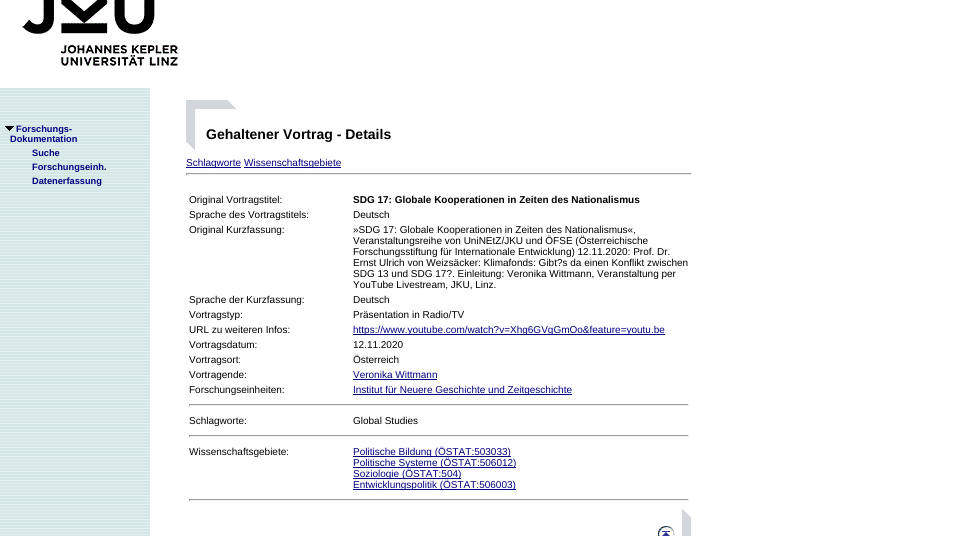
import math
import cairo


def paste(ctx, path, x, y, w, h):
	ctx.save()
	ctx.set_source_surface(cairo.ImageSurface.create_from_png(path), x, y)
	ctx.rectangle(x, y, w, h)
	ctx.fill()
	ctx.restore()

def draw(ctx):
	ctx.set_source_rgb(1, 1, 1)
	ctx.paint()
	paste(ctx, 'media/1.png', 22, 0, 156, 66)
	paste(ctx, 'media/2.png', 0, 88, 150, 448)
	paste(ctx, 'media/3.png', 5, 126, 9, 5)
	ctx.select_font_face('Liberation Sans', cairo.FONT_SLANT_NORMAL, cairo.FONT_WEIGHT_BOLD)
	ctx.set_font_size(9.25)
	ctx.set_source_rgb(0, 0, 0.502)
	for x, y, s in [
		(16, 132, 'Forschungs-'),
		(10, 142, 'Dokumentation'),
		(32, 156, 'Suche'),
		(32, 170, 'Forschungseinh.'),
		(32, 184, 'Datenerfassung'),
	]:
		ctx.move_to(x, y)
		ctx.show_text(s)
	paste(ctx, 'media/4.png', 186, 100, 50, 50)
	ctx.set_font_size(14)
	ctx.set_source_rgb(0, 0, 0)
	ctx.move_to(206, 139)
	ctx.show_text('Gehaltener Vortrag - Details')
	ctx.set_source_rgb(0, 0, 0.502)
	ctx.rectangle(186, 167, 55, 1)
	ctx.fill()
	ctx.select_font_face('Liberation Sans')
	ctx.set_font_size(10)
	ctx.move_to(186, 166)
	ctx.show_text('Schlagworte')
	ctx.rectangle(244, 167, 97, 1)
	ctx.fill()
	ctx.move_to(244, 166)
	ctx.show_text('Wissenschaftsgebiete')
	ctx.set_source_rgb(0.624, 0.624, 0.624)
	ctx.rectangle(186, 173, 506, 1)
	ctx.fill()
	ctx.set_source_rgb(0.933, 0.933, 0.933)
	ctx.rectangle(691, 173, 1, 2)
	ctx.rectangle(186, 174, 506, 1)
	ctx.fill()
	ctx.set_source_rgb(0.624, 0.624, 0.624)
	ctx.rectangle(186, 173, 1, 2)
	ctx.fill()
	ctx.set_source_rgb(0, 0, 0)
	ctx.move_to(189, 203)
	ctx.show_text('Original Vortragstitel:')
	ctx.select_font_face('Liberation Sans', cairo.FONT_SLANT_NORMAL, cairo.FONT_WEIGHT_BOLD)
	ctx.move_to(353, 203)
	ctx.show_text('SDG 17: Globale Kooperationen in Zeiten des Nationalismus')
	ctx.select_font_face('Liberation Sans')
	for x, y, s in [
		(189, 218, 'Sprache des Vortragstitels:'),
		(353, 218, 'Deutsch'),
		(189, 233, 'Original Kurzfassung:'),
		(353, 233, '»SDG 17: Globale Kooperationen in Zeiten des Nationalismus«,'),
		(353, 244, 'Veranstaltungsreihe von UniNEtZ/JKU und ÖFSE (Österreichische'),
		(353, 255, 'Forschungsstiftung für Internationale Entwicklung) 12.11.2020: Prof. Dr.'),
		(353, 266, 'Ernst Ulrich von Weizsäcker: Klimafonds: Gibt?s da einen Konflikt zwischen'),
		(353, 277, 'SDG 13 und SDG 17?. Einleitung: Veronika Wittmann, Veranstaltung per'),
		(353, 288, 'YouTube Livestream, JKU, Linz.'),
		(189, 303, 'Sprache der Kurzfassung:'),
		(353, 303, 'Deutsch'),
		(189, 318, 'Vortragstyp:'),
		(353, 318, 'Präsentation in Radio/TV'),
		(189, 333, 'URL zu weiteren Infos:'),
	]:
		ctx.move_to(x, y)
		ctx.show_text(s)
	ctx.set_source_rgb(0, 0, 0.502)
	ctx.rectangle(353, 334, 312, 1)
	ctx.fill()
	ctx.move_to(353, 333)
	ctx.show_text('https://www.youtube.com/watch?v=Xhg6GVgGmOo&feature=youtu.be')
	ctx.set_source_rgb(0, 0, 0)
	for x, y, s in [
		(189, 348, 'Vortragsdatum:'),
		(353, 348, '12.11.2020'),
		(189, 363, 'Vortragsort:'),
		(353, 363, 'Österreich'),
		(189, 378, 'Vortragende:'),
	]:
		ctx.move_to(x, y)
		ctx.show_text(s)
	ctx.set_source_rgb(0, 0, 0.502)
	ctx.move_to(353, 378)
	ctx.show_text('Veronika Wittmann')
	ctx.rectangle(353, 379, 84, 1)
	ctx.fill()
	ctx.set_source_rgb(0, 0, 0)
	ctx.move_to(189, 393)
	ctx.show_text('Forschungseinheiten:')
	ctx.set_source_rgb(0, 0, 0.502)
	ctx.rectangle(353, 394, 219, 1)
	ctx.fill()
	ctx.move_to(353, 393)
	ctx.show_text('Institut für Neuere Geschichte und Zeitgeschichte')
	ctx.set_source_rgb(0.624, 0.624, 0.624)
	ctx.rectangle(189, 404, 500, 1)
	ctx.fill()
	ctx.set_source_rgb(0.933, 0.933, 0.933)
	ctx.rectangle(688, 404, 1, 2)
	ctx.rectangle(189, 405, 500, 1)
	ctx.fill()
	ctx.set_source_rgb(0.624, 0.624, 0.624)
	ctx.rectangle(189, 404, 1, 2)
	ctx.fill()
	ctx.set_source_rgb(0, 0, 0)
	ctx.move_to(189, 424)
	ctx.show_text('Schlagworte:')
	ctx.move_to(353, 424)
	ctx.show_text('Global Studies')
	ctx.set_source_rgb(0.624, 0.624, 0.624)
	ctx.rectangle(189, 435, 500, 1)
	ctx.fill()
	ctx.set_source_rgb(0.933, 0.933, 0.933)
	ctx.rectangle(688, 435, 1, 2)
	ctx.rectangle(189, 436, 500, 1)
	ctx.fill()
	ctx.set_source_rgb(0.624, 0.624, 0.624)
	ctx.rectangle(189, 435, 1, 2)
	ctx.fill()
	ctx.set_source_rgb(0, 0, 0)
	ctx.move_to(189, 455)
	ctx.show_text('Wissenschaftsgebiete:')
	ctx.set_source_rgb(0, 0, 0.502)
	ctx.rectangle(353, 456, 158, 1)
	ctx.fill()
	ctx.move_to(353, 455)
	ctx.show_text('Politische Bildung (ÖSTAT:503033)')
	ctx.rectangle(353, 467, 163, 1)
	ctx.fill()
	ctx.move_to(353, 466)
	ctx.show_text('Politische Systeme (ÖSTAT:506012)')
	ctx.rectangle(353, 478, 108, 1)
	ctx.fill()
	ctx.move_to(353, 477)
	ctx.show_text('Soziologie (ÖSTAT:504)')
	ctx.rectangle(353, 489, 163, 1)
	ctx.fill()
	ctx.move_to(353, 488)
	ctx.show_text('Entwicklungspolitik (ÖSTAT:506003)')
	ctx.set_source_rgb(0.624, 0.624, 0.624)
	ctx.rectangle(189, 499, 500, 1)
	ctx.fill()
	ctx.set_source_rgb(0.933, 0.933, 0.933)
	ctx.rectangle(688, 499, 1, 2)
	ctx.rectangle(189, 500, 500, 1)
	ctx.fill()
	ctx.set_source_rgb(0.624, 0.624, 0.624)
	ctx.rectangle(189, 499, 1, 2)
	ctx.fill()
	paste(ctx, 'media/5.png', 682, 509, 9, 27)
	paste(ctx, 'media/6.png', 658, 526, 17, 10)


surface = cairo.ImageSurface(cairo.FORMAT_RGB24, 978, 536)
ctx = cairo.Context(surface)
options = cairo.FontOptions()
options.set_hint_metrics(cairo.HINT_METRICS_OFF)
options.set_hint_style(cairo.HINT_STYLE_NONE)
ctx.set_font_options(options)
ctx.set_miter_limit(4)
draw(ctx)
surface.write_to_png('image.png')
